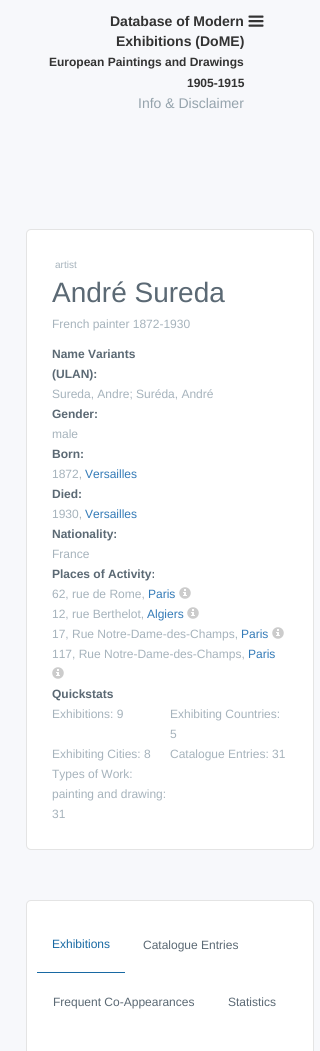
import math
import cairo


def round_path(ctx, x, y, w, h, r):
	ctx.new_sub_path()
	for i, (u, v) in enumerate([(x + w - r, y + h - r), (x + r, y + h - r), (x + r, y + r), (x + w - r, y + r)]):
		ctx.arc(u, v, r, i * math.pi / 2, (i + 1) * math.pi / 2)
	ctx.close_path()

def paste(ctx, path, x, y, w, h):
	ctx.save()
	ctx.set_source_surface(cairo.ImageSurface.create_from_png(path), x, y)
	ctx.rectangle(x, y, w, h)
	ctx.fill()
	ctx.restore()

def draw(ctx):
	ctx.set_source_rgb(0.965, 0.969, 0.984)
	ctx.paint()
	ctx.select_font_face('Arimo', cairo.FONT_SLANT_NORMAL, cairo.FONT_WEIGHT_BOLD)
	ctx.set_font_size(14)
	ctx.set_source_rgb(0.2, 0.2, 0.2)
	ctx.move_to(110, 26)
	ctx.show_text('Database of Modern')
	ctx.move_to(116, 46)
	ctx.show_text('Exhibitions (DoME)')
	ctx.set_font_size(12)
	ctx.move_to(49, 66)
	ctx.show_text('European Paintings and Drawings')
	ctx.move_to(187, 87)
	ctx.show_text('1905-1915')
	ctx.select_font_face('Arimo')
	ctx.set_font_size(14)
	ctx.set_source_rgb(0.584, 0.639, 0.675)
	ctx.move_to(138, 108)
	ctx.show_text('Info & Disclaimer')
	paste(ctx, 'media/1.png', 248, 15, 16, 12)
	ctx.set_source_rgb(1, 1, 1)
	round_path(ctx, 26, 229, 288, 621, 5)
	ctx.fill()
	round_path(ctx, 26.5, 229.5, 287, 620, 4.5)
	ctx.set_source_rgba(0.439, 0.439, 0.439, 0.19)
	ctx.set_line_width(1)
	ctx.stroke()
	ctx.set_font_size(10)
	ctx.set_source_rgb(0.651, 0.702, 0.737)
	ctx.move_to(55, 268)
	ctx.show_text('artist')
	ctx.set_font_size(28)
	ctx.set_source_rgb(0.357, 0.412, 0.455)
	ctx.move_to(52, 302)
	ctx.show_text('André Sureda')
	ctx.set_font_size(12)
	ctx.set_source_rgb(0.651, 0.702, 0.737)
	ctx.move_to(52, 328)
	ctx.show_text('French painter 1872-1930')
	ctx.select_font_face('Arimo', cairo.FONT_SLANT_NORMAL, cairo.FONT_WEIGHT_BOLD)
	ctx.set_source_rgb(0.357, 0.412, 0.455)
	ctx.move_to(52, 358)
	ctx.show_text('Name Variants')
	ctx.move_to(52, 378)
	ctx.show_text('(ULAN):')
	ctx.select_font_face('Arimo')
	ctx.set_source_rgb(0.651, 0.702, 0.737)
	ctx.move_to(52, 398)
	ctx.show_text('Sureda, Andre; Suréda, André')
	ctx.select_font_face('Arimo', cairo.FONT_SLANT_NORMAL, cairo.FONT_WEIGHT_BOLD)
	ctx.set_source_rgb(0.357, 0.412, 0.455)
	ctx.move_to(52, 418)
	ctx.show_text('Gender:')
	ctx.select_font_face('Arimo')
	ctx.set_source_rgb(0.651, 0.702, 0.737)
	ctx.move_to(52, 438)
	ctx.show_text('male')
	ctx.select_font_face('Arimo', cairo.FONT_SLANT_NORMAL, cairo.FONT_WEIGHT_BOLD)
	ctx.set_source_rgb(0.357, 0.412, 0.455)
	ctx.move_to(52, 458)
	ctx.show_text('Born:')
	ctx.select_font_face('Arimo')
	ctx.set_source_rgb(0.651, 0.702, 0.737)
	ctx.move_to(52, 478)
	ctx.show_text('1872,')
	ctx.set_source_rgb(0.2, 0.478, 0.718)
	ctx.move_to(85, 478)
	ctx.show_text('Versailles')
	ctx.select_font_face('Arimo', cairo.FONT_SLANT_NORMAL, cairo.FONT_WEIGHT_BOLD)
	ctx.set_source_rgb(0.357, 0.412, 0.455)
	ctx.move_to(52, 498)
	ctx.show_text('Died:')
	ctx.select_font_face('Arimo')
	ctx.set_source_rgb(0.651, 0.702, 0.737)
	ctx.move_to(52, 518)
	ctx.show_text('1930,')
	ctx.set_source_rgb(0.2, 0.478, 0.718)
	ctx.move_to(85, 518)
	ctx.show_text('Versailles')
	ctx.select_font_face('Arimo', cairo.FONT_SLANT_NORMAL, cairo.FONT_WEIGHT_BOLD)
	ctx.set_source_rgb(0.357, 0.412, 0.455)
	ctx.move_to(52, 538)
	ctx.show_text('Nationality:')
	ctx.select_font_face('Arimo')
	ctx.set_source_rgb(0.651, 0.702, 0.737)
	ctx.move_to(52, 558)
	ctx.show_text('France')
	ctx.select_font_face('Arimo', cairo.FONT_SLANT_NORMAL, cairo.FONT_WEIGHT_BOLD)
	ctx.set_source_rgb(0.357, 0.412, 0.455)
	ctx.move_to(52, 578)
	ctx.show_text('Places of Activity:')
	ctx.select_font_face('Arimo')
	ctx.set_source_rgb(0.651, 0.702, 0.737)
	ctx.move_to(52, 598)
	ctx.show_text('62, rue de Rome,')
	ctx.set_source_rgb(0.2, 0.478, 0.718)
	ctx.move_to(148, 598)
	ctx.show_text('Paris')
	paste(ctx, 'media/2.png', 179, 587, 12, 12)
	ctx.set_source_rgb(0.651, 0.702, 0.737)
	ctx.move_to(52, 618)
	ctx.show_text('12, rue Berthelot,')
	ctx.set_source_rgb(0.2, 0.478, 0.718)
	ctx.move_to(147, 618)
	ctx.show_text('Algiers')
	paste(ctx, 'media/2.png', 187, 607, 12, 12)
	ctx.set_source_rgb(0.651, 0.702, 0.737)
	ctx.move_to(52, 638)
	ctx.show_text('17, Rue Notre-Dame-des-Champs,')
	ctx.set_source_rgb(0.2, 0.478, 0.718)
	ctx.move_to(241, 638)
	ctx.show_text('Paris')
	paste(ctx, 'media/2.png', 272, 627, 12, 12)
	ctx.set_source_rgb(0.651, 0.702, 0.737)
	ctx.move_to(52, 658)
	ctx.show_text('117, Rue Notre-Dame-des-Champs,')
	ctx.set_source_rgb(0.2, 0.478, 0.718)
	ctx.move_to(248, 658)
	ctx.show_text('Paris')
	paste(ctx, 'media/2.png', 52, 667, 12, 12)
	ctx.select_font_face('Arimo', cairo.FONT_SLANT_NORMAL, cairo.FONT_WEIGHT_BOLD)
	ctx.set_source_rgb(0.357, 0.412, 0.455)
	ctx.move_to(52, 698)
	ctx.show_text('Quickstats')
	ctx.select_font_face('Arimo')
	ctx.set_source_rgb(0.651, 0.702, 0.737)
	for x, y, s in [
		(52, 718, 'Exhibitions: 9'),
		(170, 718, 'Exhibiting Countries:'),
		(170, 738, '5'),
		(52, 758, 'Exhibiting Cities: 8'),
		(170, 758, 'Catalogue Entries: 31'),
		(52, 778, 'Types of Work:'),
		(52, 798, 'painting and drawing:'),
		(52, 818, '31'),
	]:
		ctx.move_to(x, y)
		ctx.show_text(s)
	ctx.set_source_rgb(1, 1, 1)
	round_path(ctx, 26, 900, 288, 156, 5)
	ctx.fill()
	round_path(ctx, 26.5, 900.5, 287, 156, 4.5)
	ctx.set_source_rgba(0.439, 0.439, 0.439, 0.19)
	ctx.stroke()
	ctx.set_source_rgb(0.094, 0.412, 0.639)
	ctx.rectangle(37, 972, 88, 1)
	ctx.fill()
	ctx.move_to(52, 948)
	ctx.show_text('Exhibitions')
	ctx.set_source_rgb(0.357, 0.412, 0.455)
	for x, y, s in [
		(143, 949, 'Catalogue Entries'),
		(53, 1006, 'Frequent Co-Appearances'),
		(228, 1006, 'Statistics'),
	]:
		ctx.move_to(x, y)
		ctx.show_text(s)


surface = cairo.ImageSurface(cairo.FORMAT_RGB24, 320, 1051)
ctx = cairo.Context(surface)
options = cairo.FontOptions()
options.set_hint_metrics(cairo.HINT_METRICS_OFF)
options.set_hint_style(cairo.HINT_STYLE_NONE)
ctx.set_font_options(options)
ctx.set_miter_limit(4)
draw(ctx)
surface.write_to_png('image.png')
